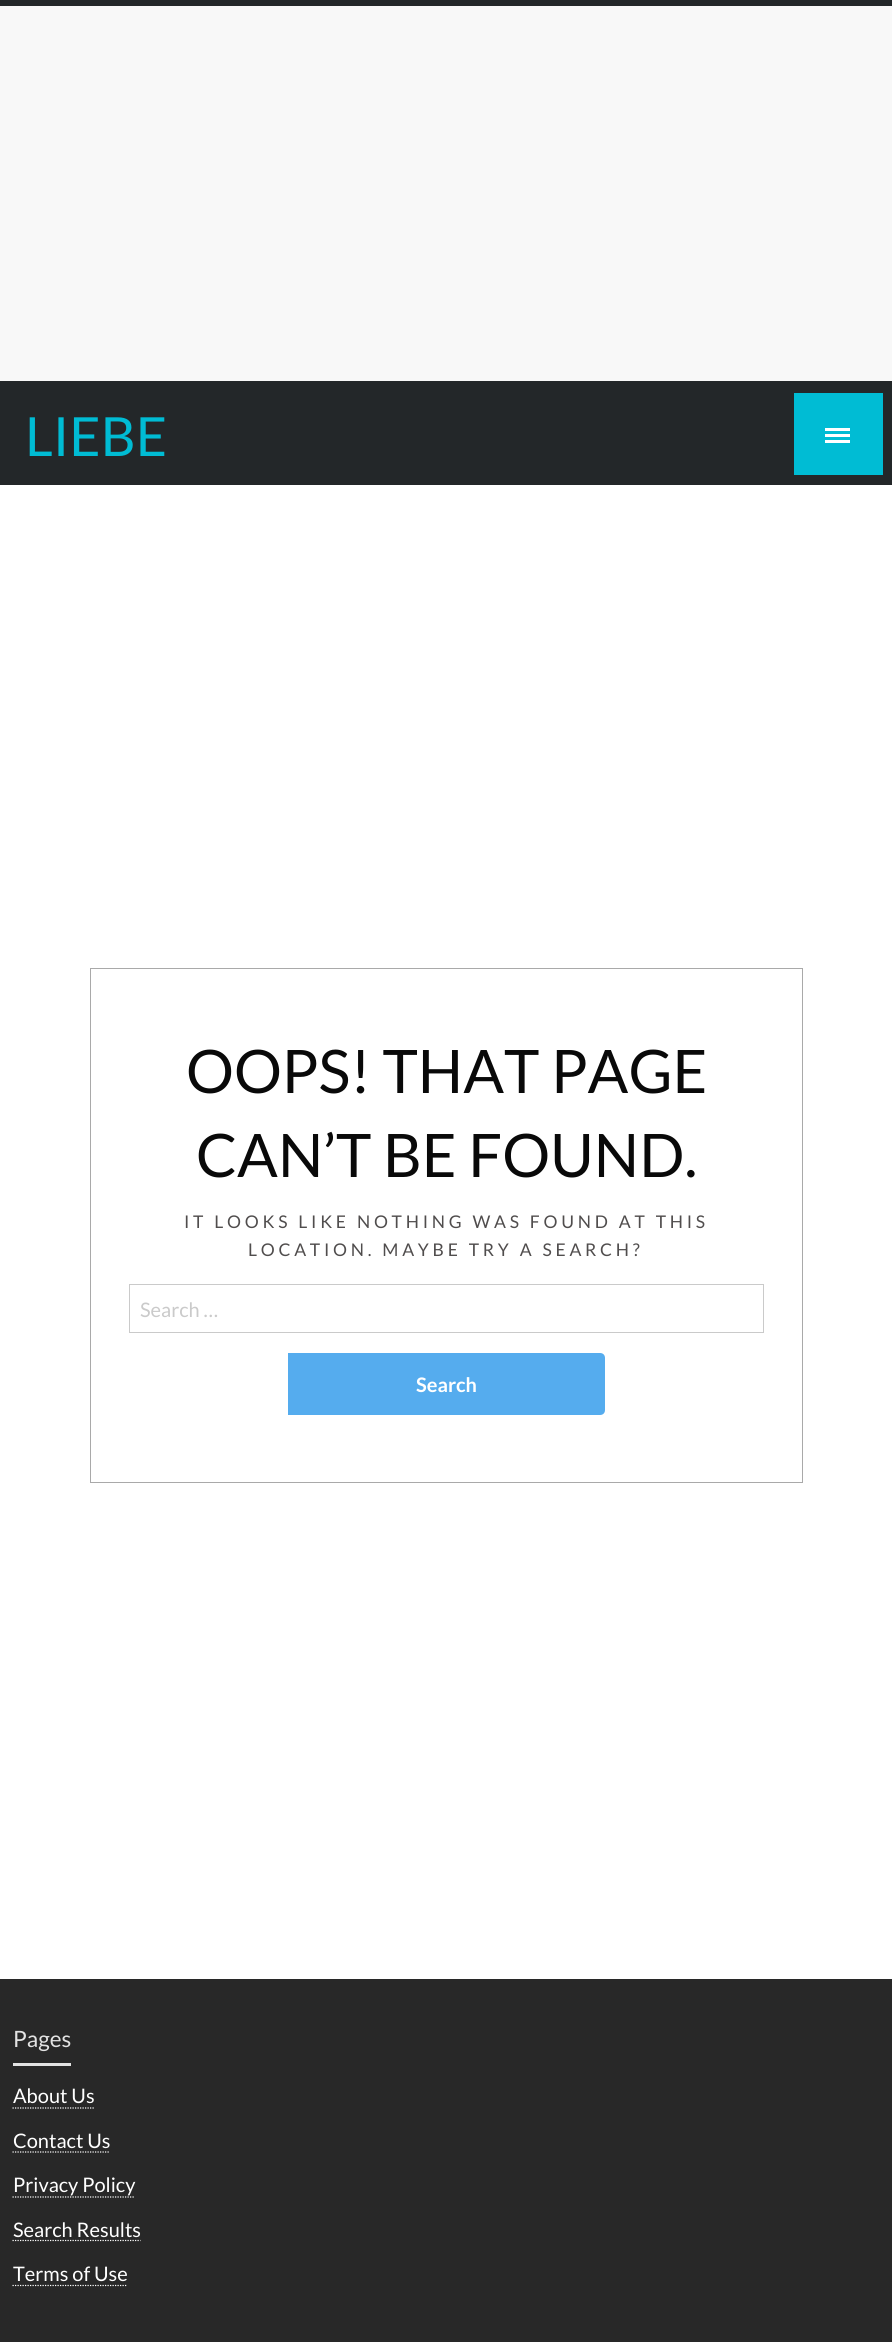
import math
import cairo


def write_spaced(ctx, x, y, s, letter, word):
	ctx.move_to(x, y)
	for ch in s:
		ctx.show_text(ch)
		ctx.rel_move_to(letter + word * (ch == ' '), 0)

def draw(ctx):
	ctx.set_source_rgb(0.969, 0.969, 0.969)
	ctx.paint()
	ctx.set_source_rgb(0.137, 0.153, 0.161)
	ctx.rectangle(0, 0, 892, 6)
	ctx.fill()
	ctx.rectangle(0, 381, 892, 104)
	ctx.fill()
	ctx.select_font_face('Lato')
	ctx.set_font_size(54)
	ctx.set_source_rgb(0, 0.737, 0.831)
	ctx.move_to(25, 456)
	ctx.show_text('LIEBE')
	ctx.rectangle(794, 393, 89, 82)
	ctx.fill()
	ctx.set_source_rgb(1, 1, 1)
	ctx.rectangle(825, 428, 25, 3)
	ctx.rectangle(825, 434, 25, 3)
	ctx.rectangle(825, 440, 25, 3)
	ctx.rectangle(0, 485, 892, 1494)
	ctx.fill()
	ctx.rectangle(90.5, 968.5, 712, 514)
	ctx.set_source_rgb(0.663, 0.663, 0.663)
	ctx.set_line_width(1)
	ctx.stroke()
	ctx.set_font_size(60)
	ctx.set_source_rgb(0.039, 0.039, 0.039)
	ctx.move_to(186, 1093)
	ctx.show_text('OOPS! THAT PAGE')
	ctx.move_to(196, 1177)
	ctx.show_text('CAN’T BE FOUND.')
	ctx.set_font_size(17.5)
	ctx.set_source_rgb(0.314, 0.302, 0.302)
	write_spaced(ctx, 184, 1228, 'IT LOOKS LIKE NOTHING WAS FOUND AT THIS', 3.75, 0)
	write_spaced(ctx, 248, 1256, 'LOCATION. MAYBE TRY A SEARCH?', 3.75, 0)
	ctx.rectangle(129.5, 1284.5, 634, 48)
	ctx.set_source_rgb(0.792, 0.792, 0.792)
	ctx.stroke()
	ctx.set_font_size(20)
	ctx.move_to(140, 1317)
	ctx.show_text('Search …')
	ctx.set_source_rgb(0.333, 0.675, 0.933)
	ctx.new_path()
	ctx.move_to(288, 1353)
	ctx.line_to(600, 1353)
	ctx.curve_to(603, 1353, 605, 1355, 605, 1358)
	ctx.line_to(605, 1410)
	ctx.curve_to(605, 1413, 603, 1415, 600, 1415)
	ctx.line_to(288, 1415)
	ctx.close_path()
	ctx.fill()
	ctx.select_font_face('Lato', cairo.FONT_SLANT_NORMAL, cairo.FONT_WEIGHT_BOLD)
	ctx.set_source_rgb(1, 1, 1)
	ctx.move_to(416, 1392)
	ctx.show_text('Search')
	ctx.set_source_rgb(0.157, 0.157, 0.157)
	ctx.rectangle(0, 1979, 892, 363)
	ctx.fill()
	ctx.set_source_rgb(0.89, 0.89, 0.89)
	ctx.rectangle(13, 2063, 58, 3)
	ctx.fill()
	ctx.select_font_face('Lato')
	ctx.set_font_size(22.5)
	ctx.move_to(13, 2047)
	ctx.show_text('Pages')
	ctx.set_font_size(20)
	ctx.set_source_rgb(1, 1, 1)
	ctx.move_to(13, 2103)
	ctx.show_text('About Us')
	ctx.new_path()
	ctx.move_to(12.5, 2108)
	ctx.line_to(94, 2108)
	ctx.set_line_width(1.2)
	ctx.set_dash([1.25, 1.25])
	ctx.stroke()
	ctx.move_to(13, 2148)
	ctx.show_text('Contact Us')
	ctx.new_path()
	ctx.move_to(12.5, 2152)
	ctx.line_to(110, 2152)
	ctx.stroke()
	ctx.move_to(13, 2192)
	ctx.show_text('Privacy Policy')
	ctx.new_path()
	ctx.move_to(12.5, 2197)
	ctx.line_to(135, 2197)
	ctx.stroke()
	ctx.move_to(13, 2237)
	ctx.show_text('Search Results')
	ctx.new_path()
	ctx.move_to(12.5, 2240.5)
	ctx.line_to(140.5, 2240.5)
	ctx.stroke()
	ctx.move_to(13, 2281)
	ctx.show_text('Terms of Use')
	ctx.new_path()
	ctx.move_to(12.5, 2285.5)
	ctx.line_to(127.5, 2285.5)
	ctx.stroke()


surface = cairo.ImageSurface(cairo.FORMAT_RGB24, 892, 2342)
ctx = cairo.Context(surface)
options = cairo.FontOptions()
options.set_hint_metrics(cairo.HINT_METRICS_OFF)
options.set_hint_style(cairo.HINT_STYLE_NONE)
ctx.set_font_options(options)
ctx.set_miter_limit(4)
draw(ctx)
surface.write_to_png('image.png')
